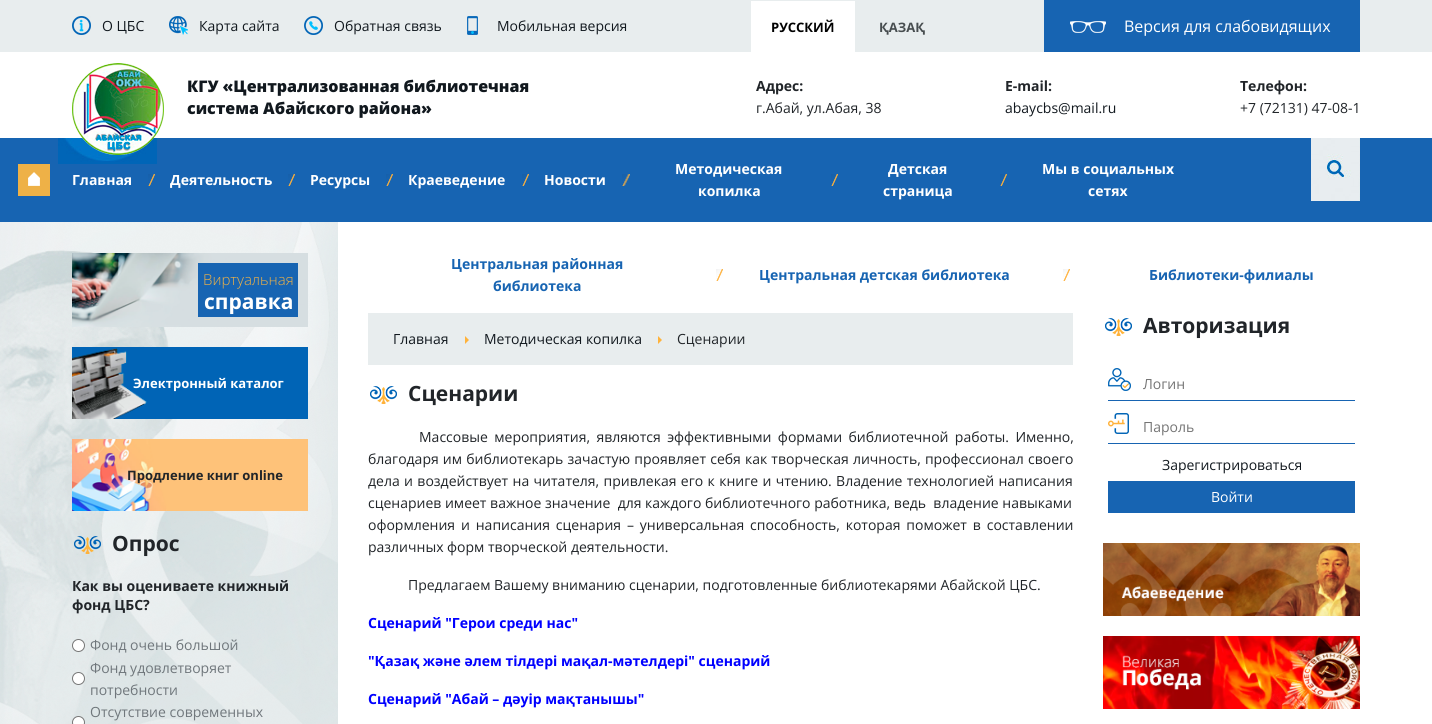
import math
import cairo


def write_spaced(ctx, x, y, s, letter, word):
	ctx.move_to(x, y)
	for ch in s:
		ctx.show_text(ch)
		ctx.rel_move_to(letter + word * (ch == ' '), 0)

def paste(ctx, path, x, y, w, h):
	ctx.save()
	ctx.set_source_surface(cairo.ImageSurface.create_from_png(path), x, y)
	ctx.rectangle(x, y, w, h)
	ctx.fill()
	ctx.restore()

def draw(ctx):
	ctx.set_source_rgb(1, 1, 1)
	ctx.paint()
	ctx.set_source_rgb(0.91, 0.929, 0.933)
	ctx.rectangle(0, 0, 1432, 52)
	ctx.fill()
	paste(ctx, 'media/1.png', 72, 16, 19, 19)
	ctx.select_font_face('Open Sans')
	ctx.set_font_size(14)
	ctx.set_source_rgb(0.067, 0.094, 0.118)
	ctx.move_to(102, 31)
	ctx.show_text('О ЦБС')
	paste(ctx, 'media/2.png', 169, 16, 19, 19)
	ctx.move_to(199, 31)
	ctx.show_text('Карта сайта')
	paste(ctx, 'media/3.png', 304, 16, 19, 19)
	ctx.move_to(334, 31)
	ctx.show_text('Обратная связь')
	paste(ctx, 'media/4.png', 467, 16, 11, 19)
	ctx.move_to(497, 31)
	ctx.show_text('Мобильная версия')
	ctx.set_source_rgb(1, 1, 1)
	ctx.rectangle(751, 1, 104, 51)
	ctx.fill()
	ctx.select_font_face('Open Sans', cairo.FONT_SLANT_NORMAL, cairo.FONT_WEIGHT_BOLD)
	ctx.set_font_size(13)
	ctx.set_source_rgb(0, 0, 0)
	ctx.move_to(771, 32)
	ctx.show_text('РУССКИЙ')
	ctx.set_source_rgb(0.278, 0.302, 0.31)
	ctx.move_to(879, 32)
	ctx.show_text('ҚАЗАҚ')
	ctx.set_source_rgb(0.09, 0.392, 0.698)
	ctx.rectangle(1044, 0, 316, 52)
	ctx.fill()
	paste(ctx, 'media/5.png', 1070, 21, 36, 12)
	ctx.select_font_face('Open Sans')
	ctx.set_font_size(16)
	ctx.set_source_rgb(1, 1, 1)
	ctx.move_to(1124, 32)
	ctx.show_text('Версия для слабовидящих')
	ctx.set_source_rgb(0.09, 0.392, 0.698)
	ctx.rectangle(0, 138, 1432, 84)
	ctx.fill()
	paste(ctx, 'media/8.png', 58, 138, 99, 26)
	paste(ctx, 'media/6.png', 72, 63, 92, 92)
	ctx.select_font_face('Open Sans ExtraBold')
	ctx.set_source_rgb(0.067, 0.094, 0.118)
	ctx.move_to(187, 92)
	ctx.show_text('КГУ «Централизованная библиотечная')
	ctx.move_to(187, 114)
	ctx.show_text('система Абайского района»')
	ctx.select_font_face('Open Sans', cairo.FONT_SLANT_NORMAL, cairo.FONT_WEIGHT_BOLD)
	ctx.set_font_size(14)
	ctx.set_source_rgb(0.129, 0.145, 0.161)
	ctx.move_to(756, 91)
	ctx.show_text('Адрес:')
	ctx.select_font_face('Open Sans')
	ctx.move_to(756, 113)
	ctx.show_text('г.Абай, ул.Абая, 38')
	ctx.select_font_face('Open Sans', cairo.FONT_SLANT_NORMAL, cairo.FONT_WEIGHT_BOLD)
	ctx.move_to(1005, 91)
	ctx.show_text('E-mail:')
	ctx.select_font_face('Open Sans')
	ctx.set_source_rgb(0.067, 0.094, 0.118)
	ctx.move_to(1005, 113)
	ctx.show_text('abaycbs@mail.ru')
	ctx.select_font_face('Open Sans', cairo.FONT_SLANT_NORMAL, cairo.FONT_WEIGHT_BOLD)
	ctx.set_source_rgb(0.129, 0.145, 0.161)
	ctx.move_to(1240, 91)
	ctx.show_text('Телефон:')
	ctx.select_font_face('Open Sans')
	ctx.move_to(1240, 113)
	ctx.show_text('+7 (72131) 47-08-1')
	ctx.set_source_rgb(0.933, 0.694, 0.278)
	ctx.rectangle(18, 164, 32, 32)
	ctx.fill()
	paste(ctx, 'media/7.png', 28, 172, 12, 14)
	ctx.select_font_face('Open Sans', cairo.FONT_SLANT_NORMAL, cairo.FONT_WEIGHT_BOLD)
	ctx.set_source_rgb(1, 1, 1)
	ctx.move_to(72, 185)
	ctx.show_text('Главная')
	paste(ctx, 'media/9.png', 148, 174, 7, 12)
	ctx.move_to(170, 185)
	ctx.show_text('Деятельность')
	paste(ctx, 'media/9.png', 288, 174, 7, 12)
	ctx.move_to(310, 185)
	ctx.show_text('Ресурсы')
	paste(ctx, 'media/9.png', 386, 174, 7, 12)
	ctx.move_to(408, 185)
	ctx.show_text('Краеведение')
	paste(ctx, 'media/9.png', 522, 174, 7, 12)
	ctx.move_to(544, 185)
	ctx.show_text('Новости')
	paste(ctx, 'media/10.png', 622, 174, 8, 12)
	ctx.move_to(675, 174)
	ctx.show_text('Методическая')
	ctx.move_to(698, 196)
	ctx.show_text('копилка')
	paste(ctx, 'media/9.png', 831, 174, 7, 12)
	ctx.move_to(888, 174)
	ctx.show_text('Детская')
	ctx.move_to(883, 196)
	ctx.show_text('страница')
	paste(ctx, 'media/9.png', 1000, 174, 7, 12)
	ctx.move_to(1042, 174)
	ctx.show_text('Мы в социальных')
	ctx.move_to(1088, 196)
	ctx.show_text('сетях')
	paste(ctx, 'media/11.png', 1311, 138, 49, 63)
	ctx.set_source_rgb(0.894, 0.914, 0.925)
	ctx.rectangle(0, 222, 298, 502)
	ctx.fill()
	paste(ctx, 'media/16.png', 298, 222, 40, 502)
	paste(ctx, 'media/17.png', 0, 222, 338, 502)
	paste(ctx, 'media/12.png', 72, 253, 236, 74)
	ctx.set_source_rgb(0.09, 0.392, 0.698)
	ctx.rectangle(198, 263, 100, 54)
	ctx.fill()
	ctx.select_font_face('Open Sans Light')
	ctx.set_font_size(15)
	ctx.set_source_rgb(0.933, 0.694, 0.278)
	ctx.move_to(203, 285)
	ctx.show_text('Виртуальная')
	ctx.select_font_face('Open Sans', cairo.FONT_SLANT_NORMAL, cairo.FONT_WEIGHT_BOLD)
	ctx.set_font_size(21)
	ctx.set_source_rgb(1, 1, 1)
	ctx.move_to(204, 309)
	ctx.show_text('справка')
	paste(ctx, 'media/13.png', 72, 347, 236, 72)
	ctx.set_font_size(13)
	ctx.move_to(133, 388)
	ctx.show_text('Электронный каталог')
	paste(ctx, 'media/14.png', 72, 439, 236, 72)
	ctx.set_source_rgb(0.129, 0.145, 0.161)
	ctx.move_to(127, 480)
	ctx.show_text('Продление книг online')
	paste(ctx, 'media/15.png', 74, 536, 27, 18)
	ctx.set_font_size(21)
	ctx.move_to(112, 551)
	ctx.show_text('Опрос')
	ctx.set_font_size(14)
	ctx.move_to(72, 591)
	ctx.show_text('Как вы оцениваете книжный')
	ctx.move_to(72, 610)
	ctx.show_text('фонд ЦБС?')
	ctx.set_source_rgb(1, 1, 1)
	ctx.new_path()
	ctx.arc(78.5, 645.5, 6, 0, 2 * math.pi)
	ctx.fill_preserve()
	ctx.set_source_rgb(0.463, 0.463, 0.463)
	ctx.set_line_width(1)
	ctx.stroke()
	ctx.select_font_face('Open Sans')
	ctx.set_source_rgb(0.439, 0.467, 0.486)
	ctx.move_to(90, 650)
	ctx.show_text('Фонд очень большой')
	ctx.set_source_rgb(1, 1, 1)
	ctx.new_path()
	ctx.arc(78.5, 678.5, 6, 0, 2 * math.pi)
	ctx.fill_preserve()
	ctx.set_source_rgb(0.463, 0.463, 0.463)
	ctx.stroke()
	ctx.set_source_rgb(0.439, 0.467, 0.486)
	for x, y, s in [
		(90, 673, 'Фонд удовлетворяет'),
		(90, 695, 'потребности'),
		(90, 717, 'Отсутствие современных'),
	]:
		ctx.move_to(x, y)
		ctx.show_text(s)
	ctx.set_source_rgb(1, 1, 1)
	ctx.new_path()
	ctx.arc(78.5, 722.5, 6, 0, 2 * math.pi)
	ctx.fill_preserve()
	ctx.set_source_rgb(0.463, 0.463, 0.463)
	ctx.stroke()
	ctx.select_font_face('Open Sans', cairo.FONT_SLANT_NORMAL, cairo.FONT_WEIGHT_BOLD)
	ctx.set_source_rgb(0.09, 0.392, 0.698)
	ctx.move_to(451, 269)
	ctx.show_text('Центральная районная')
	ctx.move_to(493, 291)
	ctx.show_text('библиотека')
	paste(ctx, 'media/18.png', 716, 269, 7, 12)
	ctx.move_to(759, 280)
	ctx.show_text('Центральная детская библиотека')
	paste(ctx, 'media/18.png', 1063, 269, 7, 12)
	ctx.move_to(1149, 280)
	ctx.show_text('Библиотеки-филиалы')
	ctx.set_source_rgb(0.91, 0.929, 0.933)
	ctx.rectangle(368, 313, 705, 52)
	ctx.fill()
	paste(ctx, 'media/19.png', 465, 336, 4, 8)
	ctx.select_font_face('Open Sans')
	ctx.set_source_rgb(0.067, 0.094, 0.118)
	ctx.move_to(393, 344)
	ctx.show_text('Главная')
	paste(ctx, 'media/19.png', 658, 336, 4, 8)
	ctx.move_to(484, 344)
	ctx.show_text('Методическая копилка')
	ctx.set_source_rgb(0.129, 0.145, 0.161)
	ctx.move_to(677, 344)
	ctx.show_text('Сценарии')
	paste(ctx, 'media/20.png', 370, 386, 27, 18)
	ctx.select_font_face('Open Sans', cairo.FONT_SLANT_NORMAL, cairo.FONT_WEIGHT_BOLD)
	ctx.set_font_size(21)
	ctx.move_to(408, 401)
	ctx.show_text('Сценарии')
	ctx.select_font_face('Open Sans')
	ctx.set_font_size(14)
	write_spaced(ctx, 419, 442, 'Массовые мероприятия, являются эффективными формами библиотечной работы. Именно,', 0, 2.75)
	write_spaced(ctx, 368, 464, 'благодаря им библиотекарь зачастую проявляет себя как творческая личность, профессионал своего', 0, 0.5)
	write_spaced(ctx, 368, 486, 'дела и воздействует на читателя, привлекая его к книге и чтению. Владение технологией написания', 0, 0.75)
	ctx.move_to(368, 508)
	ctx.show_text('сценариев имеет важное значение  для каждого библиотечного работника, ведь  владение навыками')
	write_spaced(ctx, 368, 530, 'оформления и написания сценария – универсальная способность, которая поможет в составлении', 0, 2.25)
	ctx.move_to(368, 552)
	ctx.show_text('различных форм творческой деятельности.')
	ctx.move_to(408, 590)
	ctx.show_text('Предлагаем Вашему вниманию сценарии, подготовленные библиотекарями Абайской ЦБС.')
	ctx.select_font_face('Open Sans', cairo.FONT_SLANT_NORMAL, cairo.FONT_WEIGHT_BOLD)
	ctx.set_source_rgb(0, 0, 1)
	for x, y, s in [
		(368, 628, 'Сценарий "Герои среди нас"'),
		(368, 666, '"Қазақ және әлем тілдері мақал-мәтелдері" сценарий'),
		(368, 704, 'Сценарий "Абай – дәуір мақтанышы"'),
	]:
		ctx.move_to(x, y)
		ctx.show_text(s)
	paste(ctx, 'media/20.png', 1105, 318, 27, 18)
	ctx.set_font_size(21)
	ctx.set_source_rgb(0.129, 0.145, 0.161)
	ctx.move_to(1143, 333)
	ctx.show_text('Авторизация')
	paste(ctx, 'media/21.png', 1108, 368, 23, 23)
	ctx.set_source_rgb(0.09, 0.392, 0.698)
	ctx.rectangle(1108, 400, 247, 1)
	ctx.fill()
	ctx.select_font_face('Open Sans')
	ctx.set_font_size(14)
	ctx.set_source_rgb(0.459, 0.459, 0.459)
	ctx.move_to(1143, 389)
	ctx.show_text('Логин')
	paste(ctx, 'media/22.png', 1108, 413, 21, 21)
	ctx.set_source_rgb(0.09, 0.392, 0.698)
	ctx.rectangle(1108, 443, 247, 1)
	ctx.fill()
	ctx.set_source_rgb(0.459, 0.459, 0.459)
	ctx.move_to(1143, 432)
	ctx.show_text('Пароль')
	ctx.set_source_rgb(0.067, 0.094, 0.118)
	ctx.move_to(1162, 470)
	ctx.show_text('Зарегистрироваться')
	ctx.set_source_rgb(0.09, 0.392, 0.698)
	ctx.rectangle(1108, 481, 247, 32)
	ctx.fill()
	ctx.set_source_rgb(1, 1, 1)
	ctx.move_to(1211, 502)
	ctx.show_text('Войти')
	paste(ctx, 'media/23.png', 1103, 543, 257, 73)
	paste(ctx, 'media/24.png', 1103, 636, 257, 73)


surface = cairo.ImageSurface(cairo.FORMAT_RGB24, 1432, 724)
ctx = cairo.Context(surface)
options = cairo.FontOptions()
options.set_hint_metrics(cairo.HINT_METRICS_OFF)
options.set_hint_style(cairo.HINT_STYLE_NONE)
ctx.set_font_options(options)
ctx.set_miter_limit(4)
draw(ctx)
surface.write_to_png('image.png')
